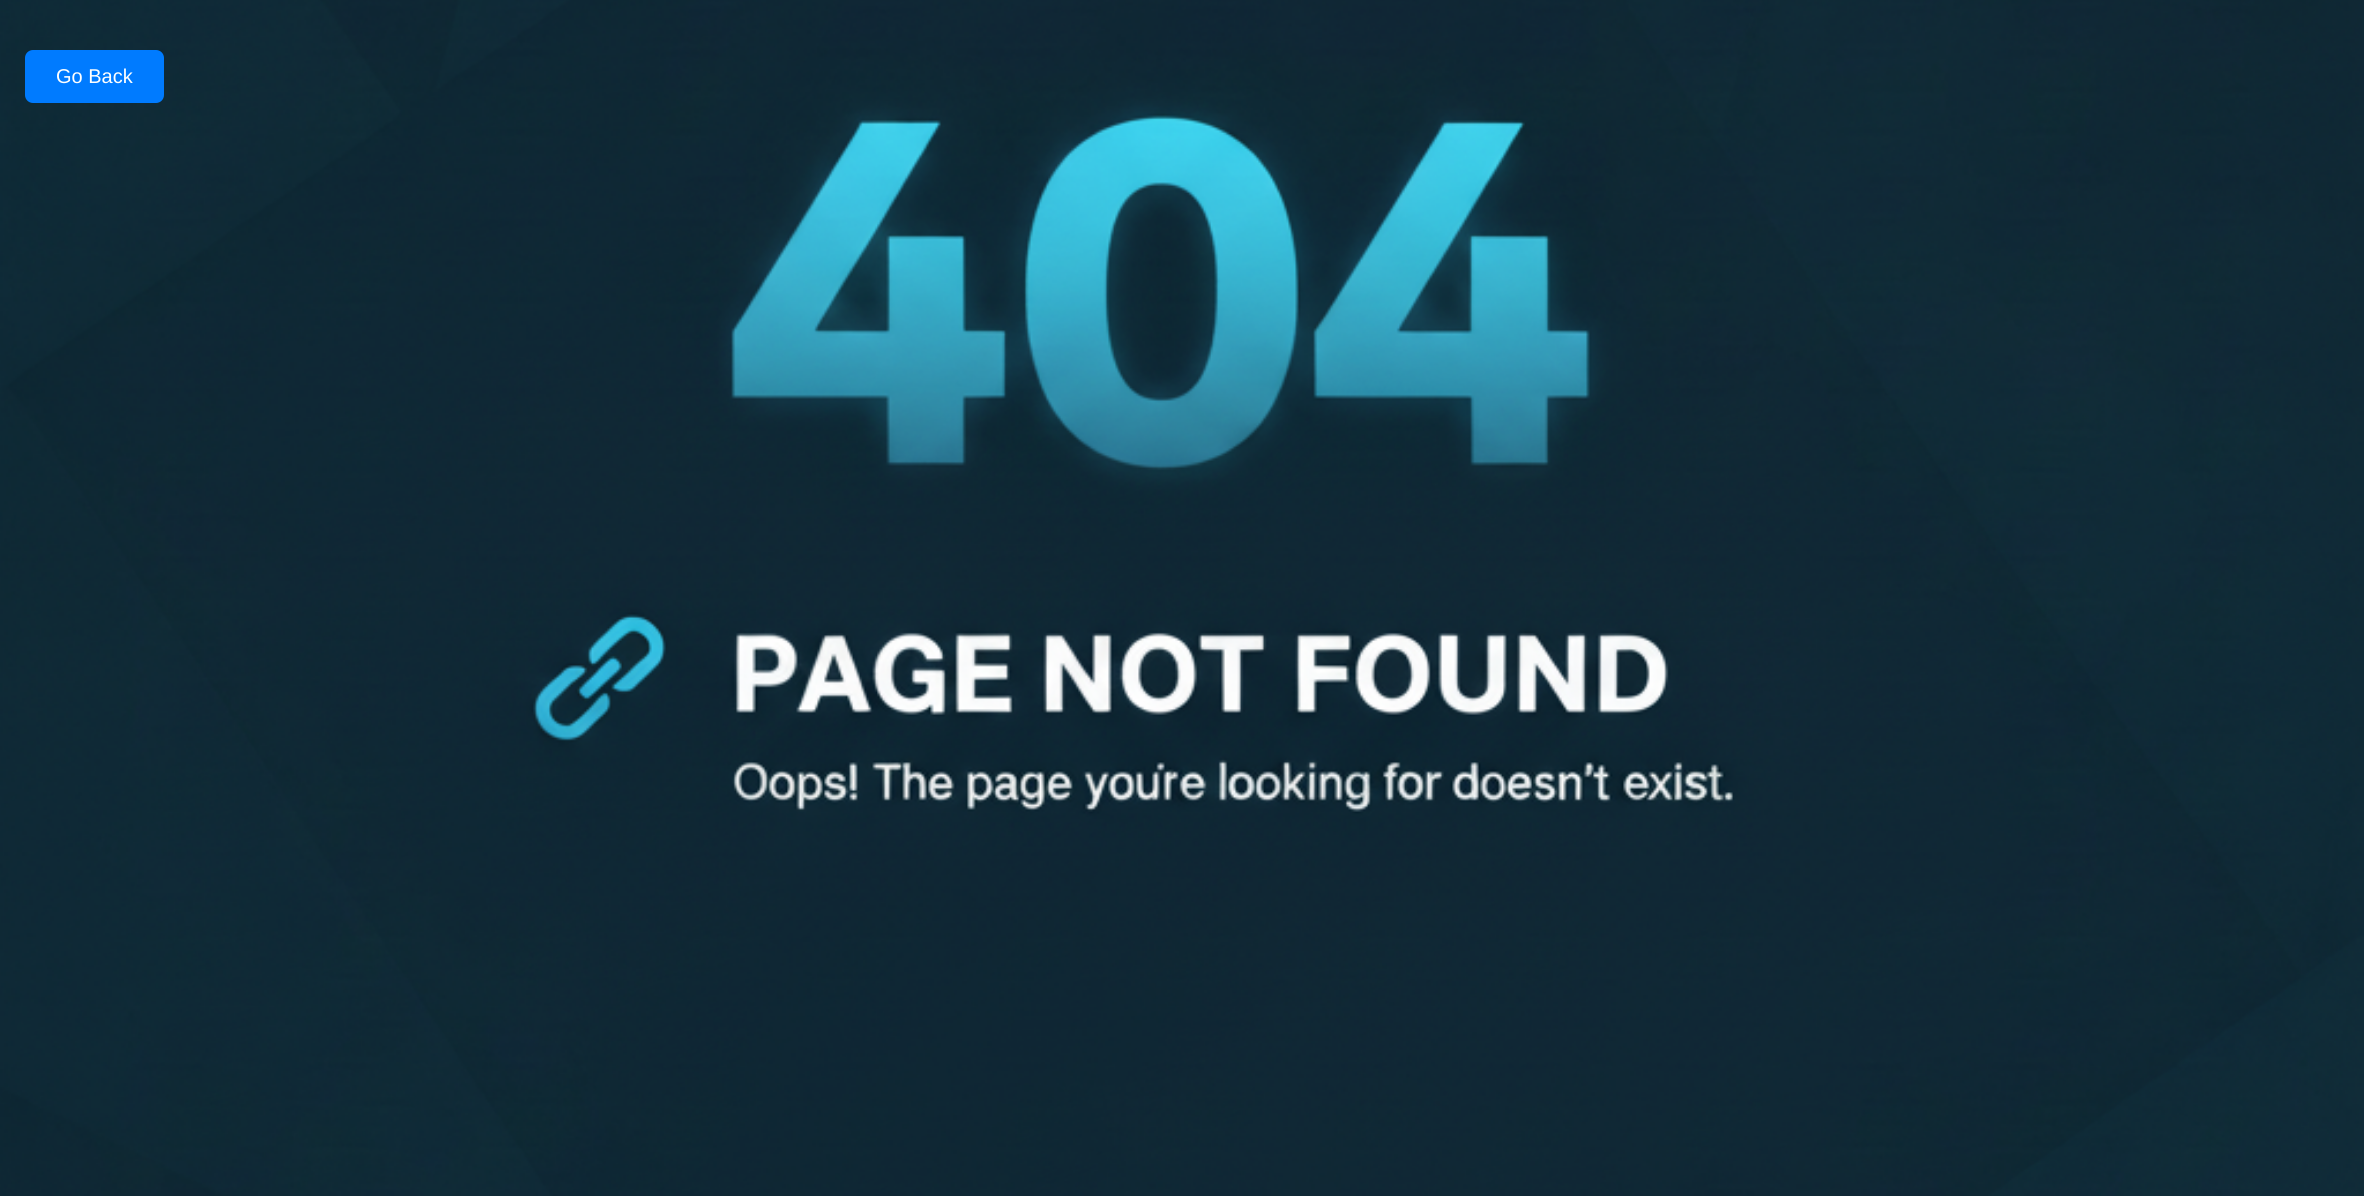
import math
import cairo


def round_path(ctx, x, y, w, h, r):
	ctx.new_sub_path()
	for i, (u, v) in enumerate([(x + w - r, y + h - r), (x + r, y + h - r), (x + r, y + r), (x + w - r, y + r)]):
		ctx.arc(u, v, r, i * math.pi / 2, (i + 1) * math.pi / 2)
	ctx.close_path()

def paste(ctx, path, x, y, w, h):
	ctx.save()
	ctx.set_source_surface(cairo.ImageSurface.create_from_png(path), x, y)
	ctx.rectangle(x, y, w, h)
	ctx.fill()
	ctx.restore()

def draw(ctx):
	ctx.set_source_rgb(1, 1, 1)
	ctx.paint()
	paste(ctx, 'media/1.png', 0, 0, 2364, 1196)
	ctx.set_source_rgb(0, 0.482, 1)
	round_path(ctx, 25, 50, 139, 53, 8)
	ctx.fill()
	ctx.select_font_face('Liberation Sans')
	ctx.set_font_size(20)
	ctx.set_source_rgb(1, 1, 1)
	ctx.move_to(56, 83)
	ctx.show_text('Go Back')


surface = cairo.ImageSurface(cairo.FORMAT_RGB24, 2364, 1196)
ctx = cairo.Context(surface)
options = cairo.FontOptions()
options.set_hint_metrics(cairo.HINT_METRICS_OFF)
options.set_hint_style(cairo.HINT_STYLE_NONE)
ctx.set_font_options(options)
ctx.set_miter_limit(4)
draw(ctx)
surface.write_to_png('image.png')
